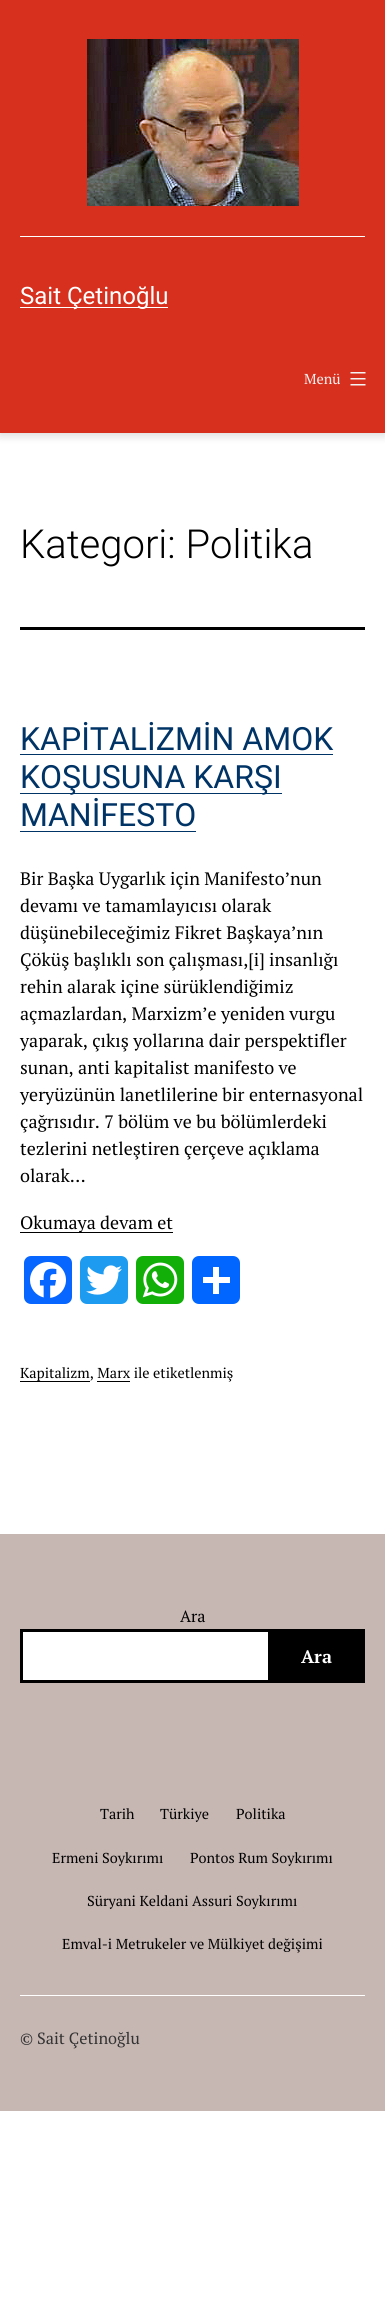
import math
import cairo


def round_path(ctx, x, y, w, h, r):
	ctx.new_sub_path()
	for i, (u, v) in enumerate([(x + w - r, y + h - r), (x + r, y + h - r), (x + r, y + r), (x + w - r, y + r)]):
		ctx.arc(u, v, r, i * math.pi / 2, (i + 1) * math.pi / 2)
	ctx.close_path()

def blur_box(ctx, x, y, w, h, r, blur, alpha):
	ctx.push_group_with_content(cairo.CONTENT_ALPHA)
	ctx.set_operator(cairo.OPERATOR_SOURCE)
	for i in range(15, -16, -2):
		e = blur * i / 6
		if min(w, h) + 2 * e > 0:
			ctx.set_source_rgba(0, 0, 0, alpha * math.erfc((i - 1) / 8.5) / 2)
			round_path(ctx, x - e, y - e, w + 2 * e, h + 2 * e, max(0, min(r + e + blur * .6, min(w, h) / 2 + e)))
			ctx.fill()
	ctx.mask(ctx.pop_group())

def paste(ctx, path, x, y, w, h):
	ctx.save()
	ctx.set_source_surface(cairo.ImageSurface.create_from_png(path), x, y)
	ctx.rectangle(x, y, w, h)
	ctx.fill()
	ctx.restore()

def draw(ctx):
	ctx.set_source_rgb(1, 1, 1)
	ctx.paint()
	ctx.set_source_rgb(0, 0, 0)
	blur_box(ctx, 0, 2, 385, 433, 0, 5, 0.16)
	ctx.set_source_rgb(0.847, 0.188, 0.118)
	ctx.rectangle(0, 0, 385, 433)
	ctx.fill()
	ctx.set_source_rgb(1, 1, 1)
	ctx.rectangle(20, 236, 345, 1)
	ctx.fill()
	paste(ctx, 'media/1.png', 87, 39, 212, 167)
	ctx.rectangle(20, 307, 148, 1)
	ctx.fill()
	ctx.select_font_face('Roboto')
	ctx.set_font_size(24)
	ctx.move_to(20, 304)
	ctx.show_text('Sait Çetinoğlu')
	ctx.select_font_face('PT Serif')
	ctx.set_font_size(14.4)
	ctx.set_source_rgb(0.957, 0.957, 0.957)
	ctx.move_to(304, 384)
	ctx.show_text('Menü')
	paste(ctx, 'media/2.png', 350, 372, 16, 14)
	ctx.set_source_rgb(0, 0, 0)
	ctx.rectangle(20, 627, 345, 3)
	ctx.fill()
	ctx.select_font_face('Roboto Light')
	ctx.set_font_size(40)
	ctx.move_to(20, 558)
	ctx.show_text('Kategori: Politika')
	ctx.select_font_face('Roboto')
	ctx.set_font_size(32)
	ctx.set_source_rgb(0, 0.2, 0.4)
	ctx.move_to(20, 750)
	ctx.show_text('KAPİTALİZMİN AMOK')
	ctx.rectangle(20, 754, 313, 1)
	ctx.fill()
	ctx.rectangle(20, 793, 262, 1)
	ctx.fill()
	ctx.move_to(20, 788)
	ctx.show_text('KOŞUSUNA KARŞI')
	ctx.move_to(20, 826)
	ctx.show_text('MANİFESTO')
	ctx.rectangle(20, 831, 176, 1)
	ctx.fill()
	ctx.select_font_face('PT Serif')
	ctx.set_font_size(18)
	ctx.set_source_rgb(0, 0, 0)
	for x, y, s in [
		(20, 885, 'Bir Başka Uygarlık için Manifesto’nun'),
		(20, 912, 'devamı ve tamamlayıcısı olarak'),
		(20, 939, 'düşünebileceğimiz Fikret Başkaya’nın'),
		(20, 966, 'Çöküş başlıklı son çalışması,[i] insanlığı'),
		(20, 993, 'rehin alarak içine sürüklendiğimiz'),
		(20, 1020, 'açmazlardan, Marxizm’e yeniden vurgu'),
		(20, 1047, 'yaparak, çıkış yollarına dair perspektifler'),
		(20, 1074, 'sunan, anti kapitalist manifesto ve'),
		(20, 1101, 'yeryüzünün lanetlilerine bir enternasyonal'),
		(20, 1128, 'çağrısıdır. 7 bölüm ve bu bölümlerdeki'),
		(20, 1155, 'tezlerini netleştiren çerçeve açıklama'),
		(20, 1182, 'olarak…'),
	]:
		ctx.move_to(x, y)
		ctx.show_text(s)
	ctx.rectangle(20, 1232, 153, 1)
	ctx.fill()
	ctx.move_to(20, 1229)
	ctx.show_text('Okumaya devam et')
	ctx.set_source_rgb(0.031, 0.4, 1)
	round_path(ctx, 24, 1256, 48, 48, 7)
	ctx.fill()
	paste(ctx, 'media/3.png', 30, 1262, 36, 36)
	ctx.set_source_rgb(0.114, 0.608, 0.941)
	round_path(ctx, 80, 1256, 48, 48, 7)
	ctx.fill()
	paste(ctx, 'media/4.png', 86, 1265, 36, 30)
	ctx.set_source_rgb(0.071, 0.686, 0.039)
	round_path(ctx, 136, 1256, 48, 48, 7)
	ctx.fill()
	paste(ctx, 'media/5.png', 142, 1262, 36, 36)
	ctx.set_source_rgb(0.004, 0.4, 1)
	round_path(ctx, 192, 1256, 48, 48, 7)
	ctx.fill()
	ctx.set_source_rgb(1, 1, 1)
	ctx.rectangle(213, 1267, 6, 27)
	ctx.rectangle(203, 1277, 27, 6)
	ctx.fill()
	ctx.set_source_rgb(0, 0, 0)
	ctx.rectangle(20, 1381, 70, 1)
	ctx.fill()
	ctx.set_font_size(14.4)
	ctx.move_to(20, 1378)
	ctx.show_text('Kapitalizm, Marx ile etiketlenmiş')
	ctx.rectangle(97, 1381, 33, 1)
	ctx.fill()
	ctx.set_source_rgb(0.776, 0.718, 0.702)
	ctx.rectangle(0, 1534, 385, 577)
	ctx.fill()
	ctx.set_font_size(16.25)
	ctx.set_source_rgb(0, 0, 0)
	ctx.move_to(180, 1622)
	ctx.show_text('Ara')
	ctx.set_source_rgb(1, 1, 1)
	ctx.rectangle(21.5, 1630.5, 248, 51)
	ctx.fill_preserve()
	ctx.set_source_rgb(0, 0, 0)
	ctx.set_line_width(3)
	ctx.stroke()
	ctx.rectangle(271, 1629, 94, 54)
	ctx.fill()
	ctx.select_font_face('PT Serif', cairo.FONT_SLANT_NORMAL, cairo.FONT_WEIGHT_BOLD)
	ctx.set_font_size(18)
	ctx.set_source_rgb(1, 1, 1)
	ctx.move_to(301, 1663)
	ctx.show_text('Ara')
	ctx.select_font_face('PT Serif')
	ctx.set_font_size(14.4)
	ctx.set_source_rgb(0, 0, 0)
	for x, y, s in [
		(100, 1819, 'Tarih'),
		(160, 1819, 'Türkiye'),
		(236, 1819, 'Politika'),
		(52, 1863, 'Ermeni Soykırımı'),
		(190, 1863, 'Pontos Rum Soykırımı'),
		(87, 1906, 'Süryani Keldani Assuri Soykırımı'),
		(62, 1949, 'Emval-i Metrukeler ve Mülkiyet değişimi'),
	]:
		ctx.move_to(x, y)
		ctx.show_text(s)
	ctx.set_source_rgb(1, 1, 1)
	ctx.rectangle(20, 1995, 345, 1)
	ctx.fill()
	ctx.set_font_size(16.25)
	ctx.set_source_rgb(0.2, 0.2, 0.2)
	ctx.move_to(20, 2044)
	ctx.show_text('© Sait Çetinoğlu')


surface = cairo.ImageSurface(cairo.FORMAT_RGB24, 385, 2320)
ctx = cairo.Context(surface)
options = cairo.FontOptions()
options.set_hint_metrics(cairo.HINT_METRICS_OFF)
options.set_hint_style(cairo.HINT_STYLE_NONE)
ctx.set_font_options(options)
ctx.set_miter_limit(4)
draw(ctx)
surface.write_to_png('image.png')
